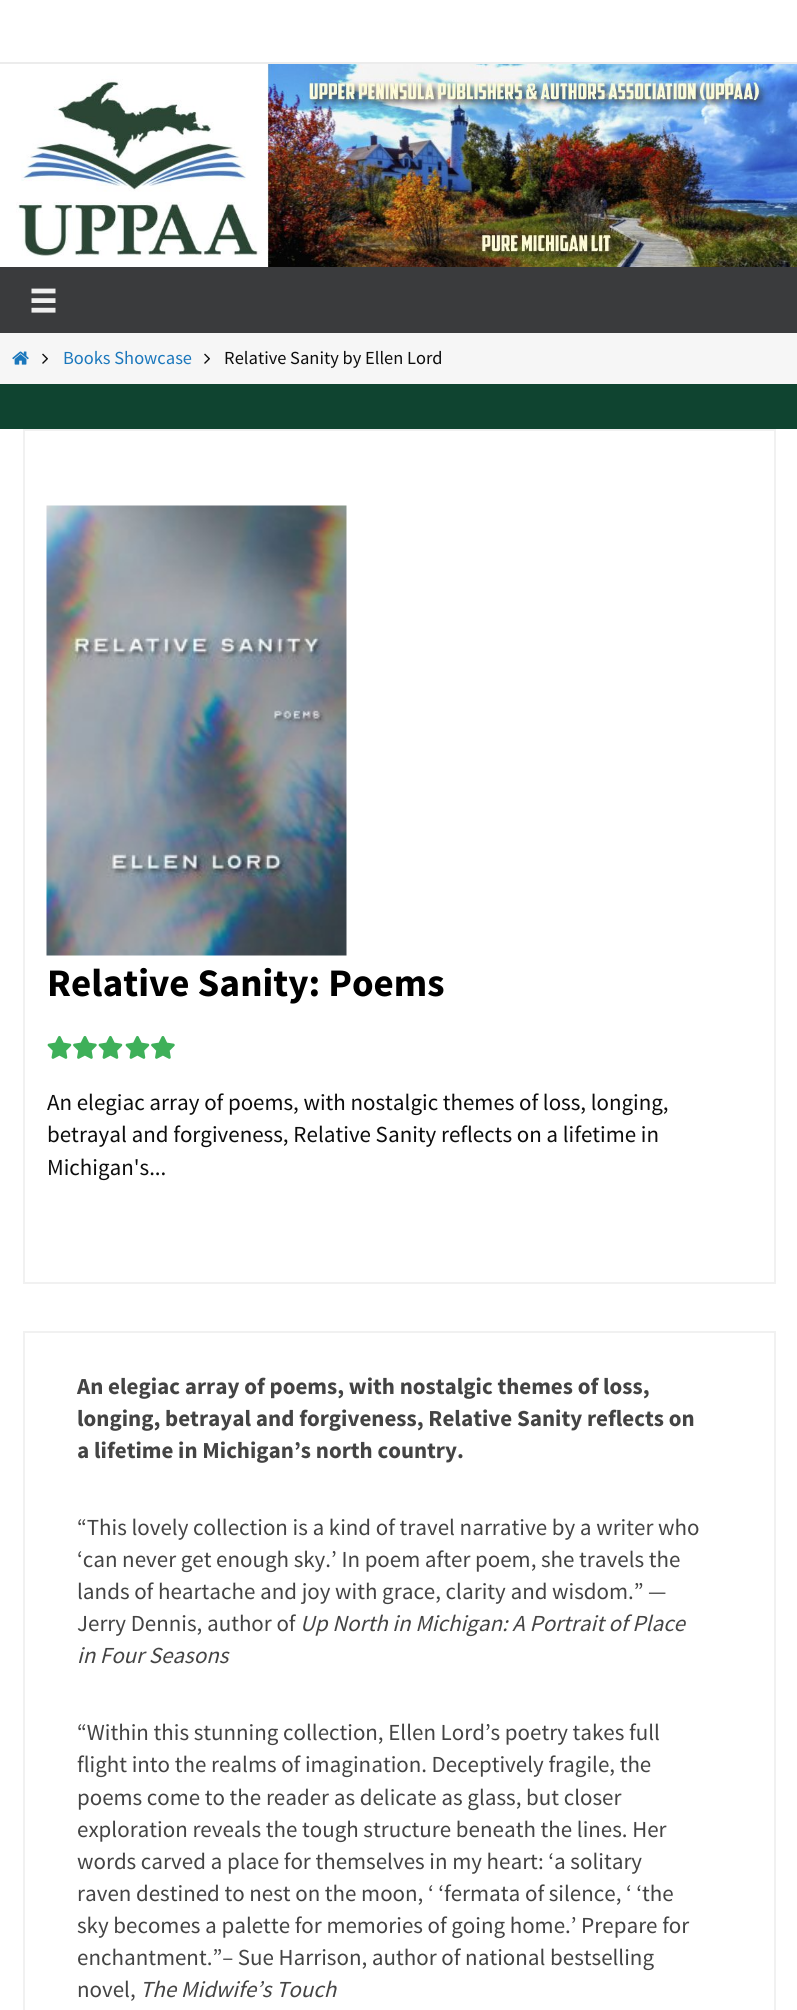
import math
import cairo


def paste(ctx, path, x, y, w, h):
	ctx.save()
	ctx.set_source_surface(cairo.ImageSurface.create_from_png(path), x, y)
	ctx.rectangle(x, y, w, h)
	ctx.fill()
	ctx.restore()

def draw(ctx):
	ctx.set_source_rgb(0.059, 0.267, 0.188)
	ctx.paint()
	ctx.set_source_rgb(1, 1, 1)
	ctx.rectangle(0, 0, 797, 62)
	ctx.fill()
	ctx.set_source_rgb(0.922, 0.922, 0.922)
	ctx.rectangle(0, 62, 797, 2)
	ctx.fill()
	paste(ctx, 'media/1.png', 0, 64, 797, 203)
	ctx.set_source_rgb(0.227, 0.231, 0.239)
	ctx.rectangle(0, 267, 797, 66)
	ctx.fill()
	paste(ctx, 'media/2.png', 31, 288, 25, 25)
	ctx.set_source_rgb(0.961, 0.961, 0.961)
	ctx.rectangle(0, 333, 797, 51)
	ctx.fill()
	paste(ctx, 'media/3.png', 12, 351, 17, 14)
	paste(ctx, 'media/4.png', 42, 353, 6, 11)
	ctx.select_font_face('Source Sans Pro')
	ctx.set_font_size(18.4)
	ctx.set_source_rgb(0.102, 0.467, 0.737)
	ctx.move_to(63, 364)
	ctx.show_text('Books Showcase')
	paste(ctx, 'media/4.png', 204, 353, 6, 11)
	ctx.set_source_rgb(0.051, 0.051, 0.051)
	ctx.move_to(224, 364)
	ctx.show_text('Relative Sanity by Ellen Lord')
	ctx.set_source_rgb(1, 1, 1)
	ctx.rectangle(0, 429, 797, 1581)
	ctx.fill()
	ctx.rectangle(24, 430, 751, 853)
	ctx.set_source_rgb(0.945, 0.945, 0.945)
	ctx.stroke()
	paste(ctx, 'media/5.png', 46, 505, 301, 451)
	ctx.select_font_face('Source Sans Pro', cairo.FONT_SLANT_NORMAL, cairo.FONT_WEIGHT_BOLD)
	ctx.set_font_size(39)
	ctx.set_source_rgb(0, 0, 0)
	ctx.move_to(47, 996)
	ctx.show_text('Relative Sanity: Poems')
	paste(ctx, 'media/6.png', 47, 1035, 25, 24)
	paste(ctx, 'media/7.png', 73, 1036, 24, 23)
	paste(ctx, 'media/6.png', 98, 1035, 25, 24)
	paste(ctx, 'media/6.png', 125, 1035, 25, 24)
	paste(ctx, 'media/7.png', 151, 1036, 24, 23)
	ctx.select_font_face('Source Sans Pro')
	ctx.set_font_size(22.95)
	ctx.set_source_rgb(0.051, 0.051, 0.051)
	for x, y, s in [
		(47, 1110, 'An elegiac array of poems, with nostalgic themes of loss, longing,'),
		(47, 1142, 'betrayal and forgiveness, Relative Sanity reflects on a lifetime in'),
		(47, 1175, 'Michigan\'s...'),
	]:
		ctx.move_to(x, y)
		ctx.show_text(s)
	ctx.rectangle(24, 1332, 751, 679)
	ctx.set_source_rgb(0.945, 0.945, 0.945)
	ctx.stroke()
	ctx.select_font_face('Source Sans Pro', cairo.FONT_SLANT_NORMAL, cairo.FONT_WEIGHT_BOLD)
	ctx.set_source_rgb(0.267, 0.267, 0.267)
	for x, y, s in [
		(77, 1394, 'An elegiac array of poems, with nostalgic themes of loss,'),
		(77, 1426, 'longing, betrayal and forgiveness, Relative Sanity reflects on'),
		(77, 1458, 'a lifetime in Michigan’s north country.'),
	]:
		ctx.move_to(x, y)
		ctx.show_text(s)
	ctx.select_font_face('Source Sans Pro')
	for x, y, s in [
		(77, 1535, '“This lovely collection is a kind of travel narrative by a writer who'),
		(77, 1567, '‘can never get enough sky.’ In poem after poem, she travels the'),
		(77, 1599, 'lands of heartache and joy with grace, clarity and wisdom.” —'),
		(77, 1631, 'Jerry Dennis, author of'),
	]:
		ctx.move_to(x, y)
		ctx.show_text(s)
	ctx.select_font_face('Source Sans Pro', cairo.FONT_SLANT_ITALIC)
	ctx.move_to(300, 1631)
	ctx.show_text('Up North in Michigan: A Portrait of Place')
	ctx.move_to(77, 1663)
	ctx.show_text('in Four Seasons')
	ctx.select_font_face('Source Sans Pro')
	for x, y, s in [
		(77, 1740, '“Within this stunning collection, Ellen Lord’s poetry takes full'),
		(77, 1772, 'flight into the realms of imagination. Deceptively fragile, the'),
		(77, 1805, 'poems come to the reader as delicate as glass, but closer'),
		(77, 1837, 'exploration reveals the tough structure beneath the lines. Her'),
		(77, 1869, 'words carved a place for themselves in my heart: ‘a solitary'),
		(77, 1901, 'raven destined to nest on the moon, ‘ ‘fermata of silence, ‘ ‘the'),
		(77, 1933, 'sky becomes a palette for memories of going home.’ Prepare for'),
		(77, 1965, 'enchantment.”– Sue Harrison, author of national bestselling'),
		(77, 1997, 'novel,'),
	]:
		ctx.move_to(x, y)
		ctx.show_text(s)
	ctx.select_font_face('Source Sans Pro', cairo.FONT_SLANT_ITALIC)
	ctx.move_to(140, 1997)
	ctx.show_text('The Midwife’s Touch')


surface = cairo.ImageSurface(cairo.FORMAT_RGB24, 797, 2010)
ctx = cairo.Context(surface)
options = cairo.FontOptions()
options.set_hint_metrics(cairo.HINT_METRICS_OFF)
options.set_hint_style(cairo.HINT_STYLE_NONE)
ctx.set_font_options(options)
ctx.set_miter_limit(4)
draw(ctx)
surface.write_to_png('image.png')
